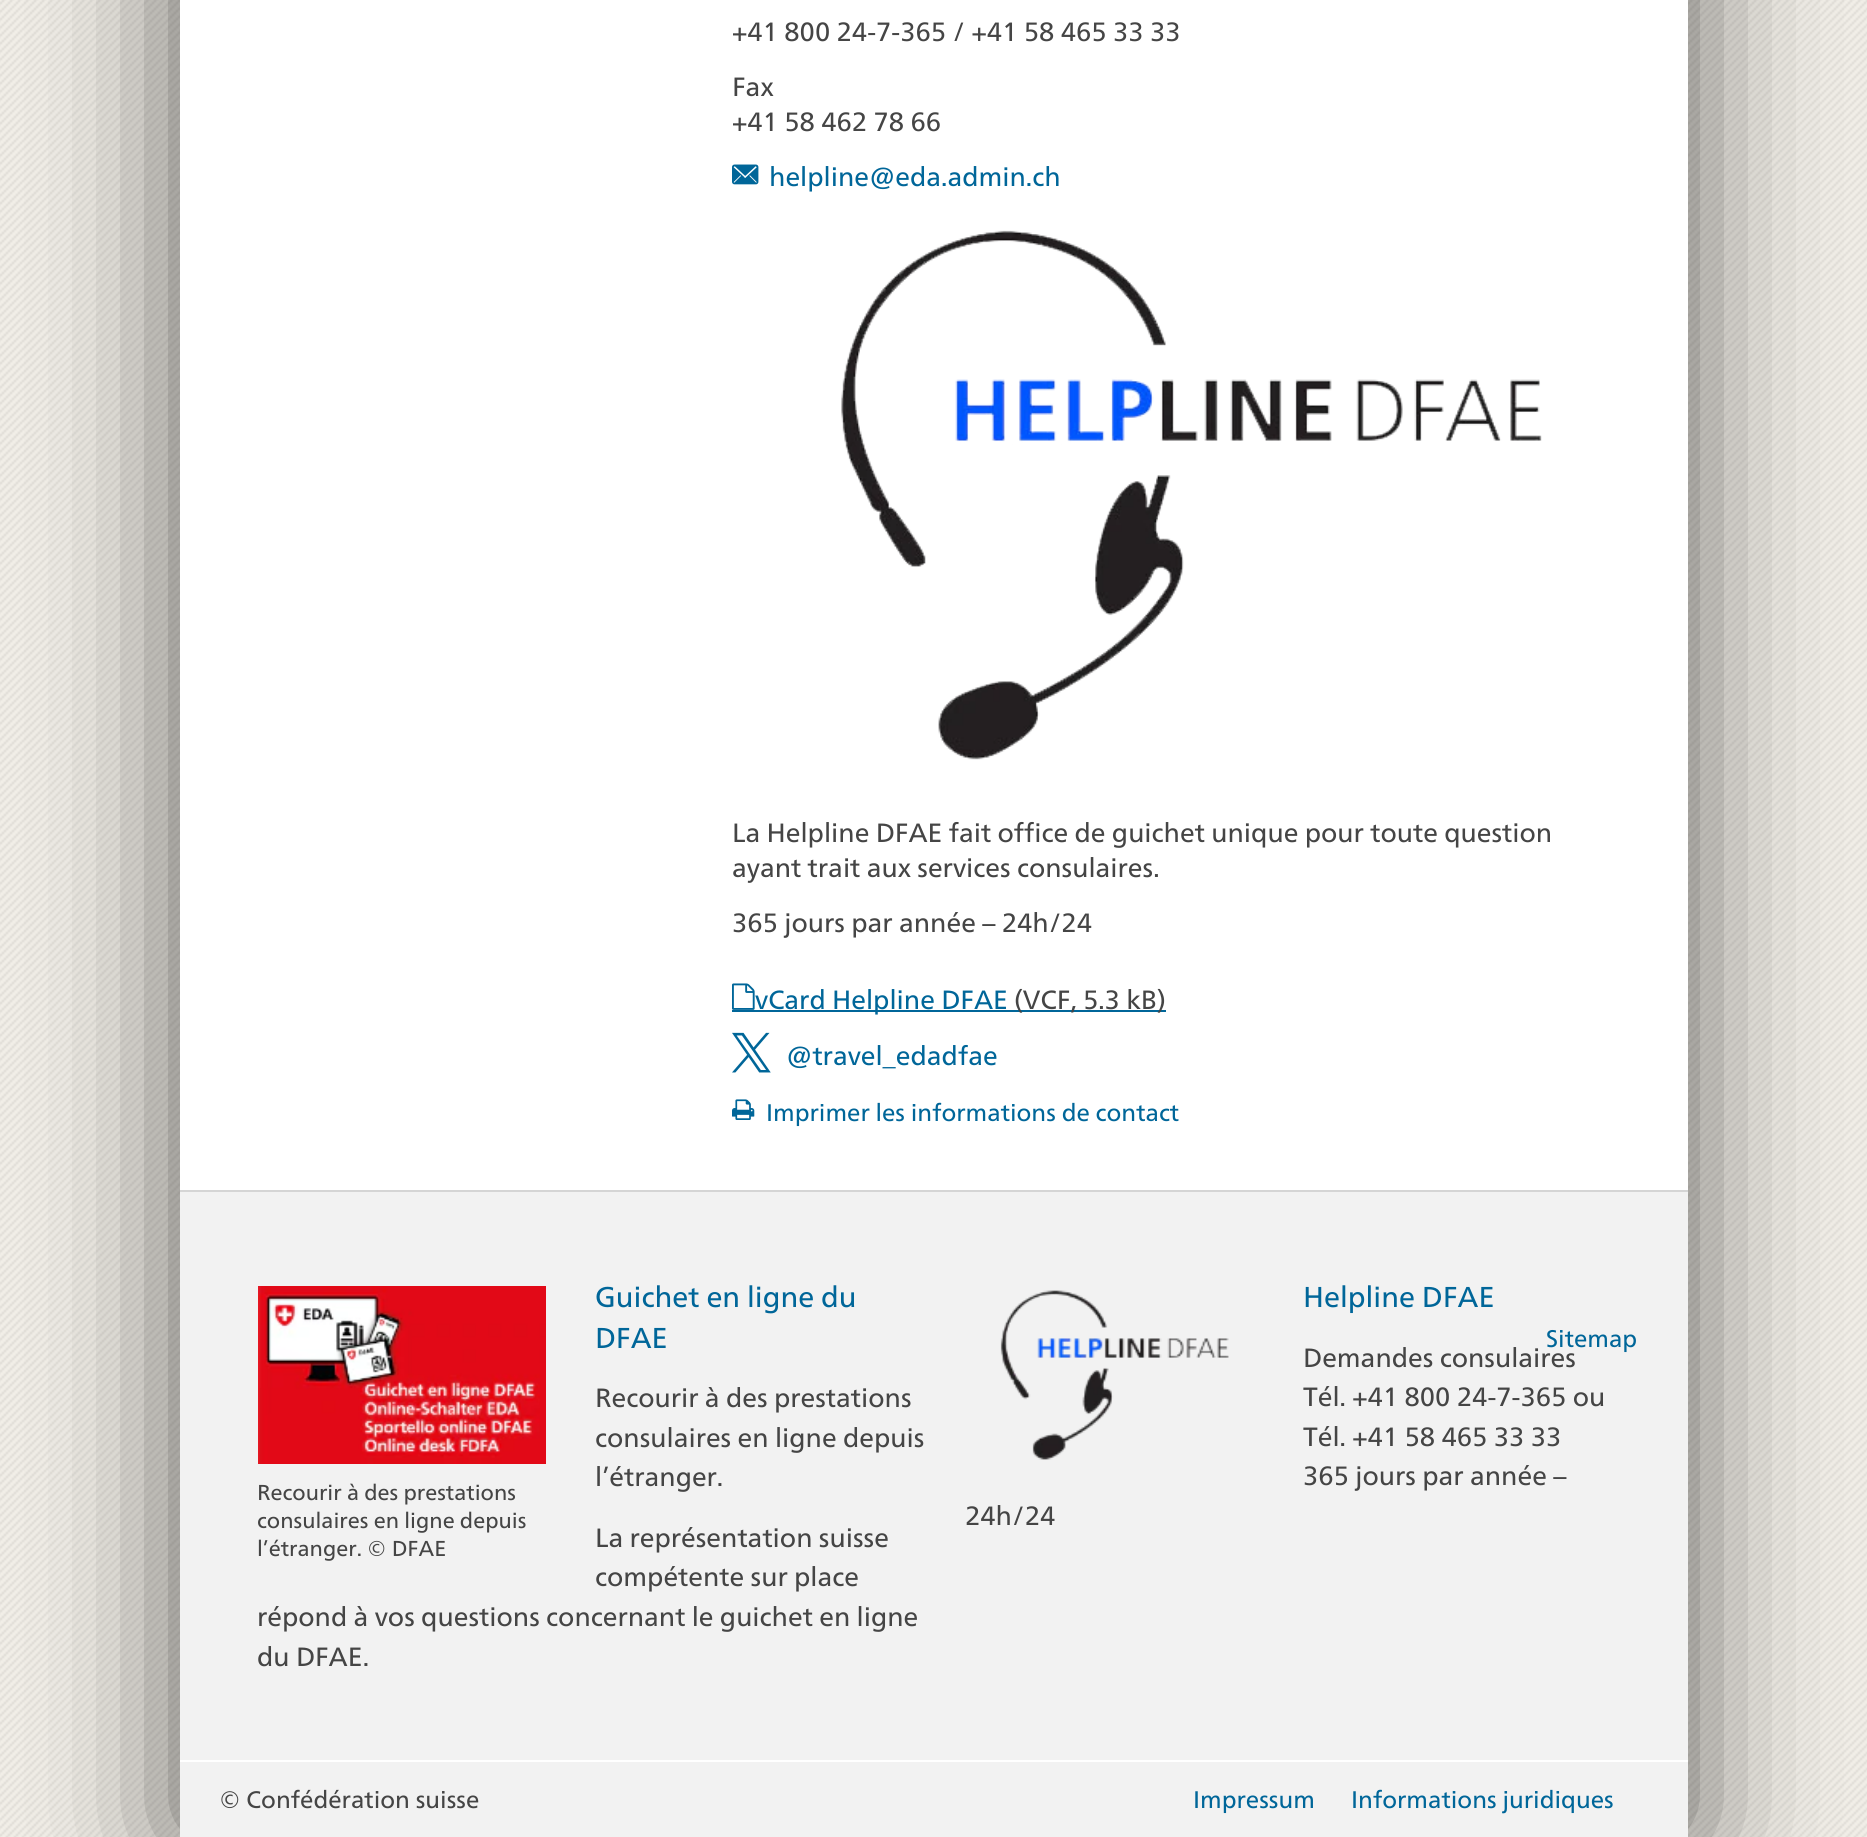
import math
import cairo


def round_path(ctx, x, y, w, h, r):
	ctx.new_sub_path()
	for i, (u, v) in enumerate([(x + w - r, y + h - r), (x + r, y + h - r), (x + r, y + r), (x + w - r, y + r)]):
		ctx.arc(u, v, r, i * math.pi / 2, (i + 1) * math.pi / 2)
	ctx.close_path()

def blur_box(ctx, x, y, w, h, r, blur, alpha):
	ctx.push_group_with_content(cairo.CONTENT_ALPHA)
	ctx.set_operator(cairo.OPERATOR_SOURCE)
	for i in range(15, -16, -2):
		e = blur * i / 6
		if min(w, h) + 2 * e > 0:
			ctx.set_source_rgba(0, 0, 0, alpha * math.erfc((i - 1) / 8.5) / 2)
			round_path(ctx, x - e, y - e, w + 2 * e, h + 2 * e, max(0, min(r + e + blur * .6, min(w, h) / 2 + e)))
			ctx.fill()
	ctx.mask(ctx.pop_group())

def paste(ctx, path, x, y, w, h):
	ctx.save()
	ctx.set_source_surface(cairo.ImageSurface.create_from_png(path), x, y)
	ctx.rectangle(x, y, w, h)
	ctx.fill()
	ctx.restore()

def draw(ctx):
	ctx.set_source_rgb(1, 1, 1)
	ctx.paint()
	paste(ctx, 'media/1.png', 0, 0, 1867, 1837)
	ctx.set_source_rgb(0, 0, 0)
	blur_box(ctx, 180, -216, 1508, 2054, 0, 72, 0.6)
	ctx.set_source_rgb(1, 1, 1)
	ctx.rectangle(180, 0, 1508, 1190)
	ctx.fill()
	ctx.select_font_face('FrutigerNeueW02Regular')
	ctx.set_font_size(26.4)
	ctx.set_source_rgb(0.271, 0.271, 0.271)
	for x, y, s in [
		(732, 41, '+41 800 24-7-365 / +41 58 465 33 33'),
		(732, 96, 'Fax'),
		(732, 131, '+41 58 462 78 66'),
	]:
		ctx.move_to(x, y)
		ctx.show_text(s)
	paste(ctx, 'media/2.png', 732, 164, 27, 21)
	ctx.set_source_rgb(0, 0.4, 0.6)
	ctx.move_to(769, 186)
	ctx.show_text('helpline@eda.admin.ch')
	paste(ctx, 'media/3.png', 841, 230, 701, 530)
	ctx.set_source_rgb(0.271, 0.271, 0.271)
	for x, y, s in [
		(732, 842, 'La Helpline DFAE fait office de guichet unique pour toute question'),
		(732, 877, 'ayant trait aux services consulaires.'),
		(732, 932, '365 jours par année – 24h/24'),
	]:
		ctx.move_to(x, y)
		ctx.show_text(s)
	paste(ctx, 'media/4.png', 732, 983, 23, 27)
	ctx.set_source_rgb(0, 0.4, 0.6)
	ctx.rectangle(732, 1010, 434, 2)
	ctx.fill()
	ctx.move_to(755, 1009)
	ctx.show_text('vCard Helpline DFAE')
	ctx.set_source_rgb(0.271, 0.271, 0.271)
	ctx.move_to(1014, 1009)
	ctx.show_text('(VCF, 5.3 kB)')
	paste(ctx, 'media/5.png', 732, 1032, 39, 41)
	ctx.set_source_rgb(0, 0.4, 0.6)
	ctx.move_to(786, 1065)
	ctx.show_text('@travel_edadfae')
	paste(ctx, 'media/6.png', 732, 1099, 23, 21)
	ctx.set_font_size(24)
	ctx.move_to(766, 1121)
	ctx.show_text('Imprimer les informations de contact')
	ctx.set_source_rgb(0.949, 0.949, 0.949)
	ctx.rectangle(180, 1192, 1508, 645)
	ctx.fill()
	ctx.set_source_rgb(0.835, 0.835, 0.835)
	ctx.rectangle(180, 1190, 1508, 2)
	ctx.fill()
	ctx.set_font_size(28.75)
	ctx.set_source_rgb(0, 0.4, 0.6)
	ctx.move_to(595, 1307)
	ctx.show_text('Guichet en ligne du')
	ctx.move_to(595, 1348)
	ctx.show_text('DFAE')
	ctx.set_font_size(26.4)
	ctx.set_source_rgb(0.271, 0.271, 0.271)
	for x, y, s in [
		(595, 1407, 'Recourir à des prestations'),
		(595, 1447, 'consulaires en ligne depuis'),
		(595, 1486, 'l’étranger.'),
	]:
		ctx.move_to(x, y)
		ctx.show_text(s)
	paste(ctx, 'media/7.png', 258, 1286, 288, 178)
	ctx.set_font_size(21.6)
	for x, y, s in [
		(257, 1500, 'Recourir à des prestations'),
		(257, 1528, 'consulaires en ligne depuis'),
		(257, 1556, 'l’étranger. © DFAE'),
	]:
		ctx.move_to(x, y)
		ctx.show_text(s)
	ctx.set_font_size(26.4)
	for x, y, s in [
		(595, 1547, 'La représentation suisse'),
		(595, 1586, 'compétente sur place'),
		(257, 1626, 'répond à vos questions concernant le guichet en ligne'),
		(257, 1666, 'du DFAE.'),
	]:
		ctx.move_to(x, y)
		ctx.show_text(s)
	paste(ctx, 'media/8.png', 1000, 1290, 229, 170)
	ctx.set_font_size(28.75)
	ctx.set_source_rgb(0, 0.4, 0.6)
	ctx.move_to(1303, 1307)
	ctx.show_text('Helpline DFAE')
	ctx.set_font_size(26.4)
	ctx.set_source_rgb(0.271, 0.271, 0.271)
	for x, y, s in [
		(1303, 1367, 'Demandes consulaires'),
		(1303, 1406, 'Tél. +41 800 24-7-365 ou'),
		(1303, 1446, 'Tél. +41 58 465 33 33'),
		(1303, 1485, '365 jours par année –'),
		(965, 1525, '24h/24'),
	]:
		ctx.move_to(x, y)
		ctx.show_text(s)
	ctx.set_font_size(24)
	ctx.set_source_rgb(0, 0.4, 0.6)
	ctx.move_to(1546, 1347)
	ctx.show_text('Sitemap')
	ctx.set_source_rgb(1, 1, 1)
	ctx.rectangle(180, 1760, 1508, 2)
	ctx.fill()
	ctx.set_source_rgb(0.271, 0.271, 0.271)
	ctx.move_to(219, 1808)
	ctx.show_text('© Confédération suisse')
	ctx.set_source_rgb(0, 0.4, 0.6)
	ctx.move_to(1193, 1808)
	ctx.show_text('Impressum')
	ctx.move_to(1351, 1808)
	ctx.show_text('Informations juridiques')


surface = cairo.ImageSurface(cairo.FORMAT_RGB24, 1867, 1837)
ctx = cairo.Context(surface)
options = cairo.FontOptions()
options.set_hint_metrics(cairo.HINT_METRICS_OFF)
options.set_hint_style(cairo.HINT_STYLE_NONE)
ctx.set_font_options(options)
ctx.set_miter_limit(4)
draw(ctx)
surface.write_to_png('image.png')
